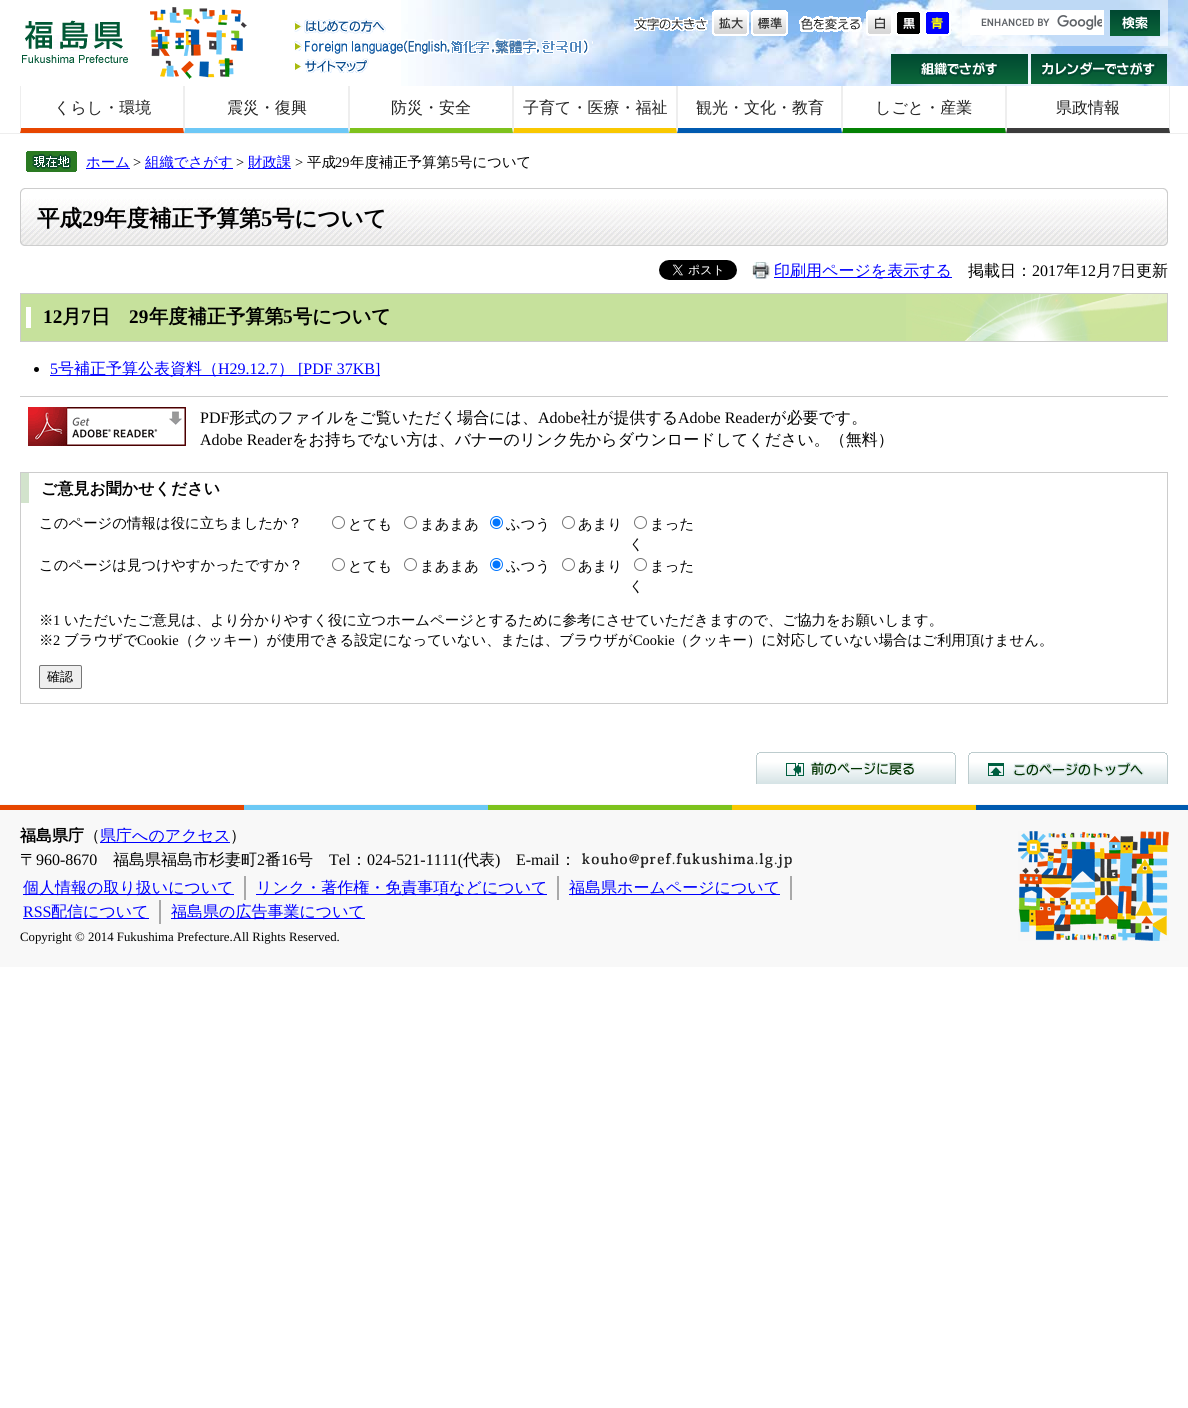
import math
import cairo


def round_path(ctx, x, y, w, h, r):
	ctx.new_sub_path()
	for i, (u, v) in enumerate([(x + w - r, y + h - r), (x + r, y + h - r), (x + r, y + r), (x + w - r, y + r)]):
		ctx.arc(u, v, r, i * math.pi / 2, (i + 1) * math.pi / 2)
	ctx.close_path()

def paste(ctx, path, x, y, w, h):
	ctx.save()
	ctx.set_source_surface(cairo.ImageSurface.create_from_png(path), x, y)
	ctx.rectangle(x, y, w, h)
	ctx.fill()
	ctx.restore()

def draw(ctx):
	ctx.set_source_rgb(1, 1, 1)
	ctx.paint()
	paste(ctx, 'media/1.png', 401, 0, 787, 86)
	paste(ctx, 'media/2.png', 150, 7, 97, 72)
	paste(ctx, 'media/3.png', 22, 20, 106, 43)
	paste(ctx, 'media/4.png', 294, 18, 92, 16)
	paste(ctx, 'media/5.png', 294, 18, 91, 15)
	paste(ctx, 'media/6.png', 294, 38, 299, 18)
	paste(ctx, 'media/7.png', 295, 38, 298, 18)
	paste(ctx, 'media/8.png', 294, 58, 75, 16)
	paste(ctx, 'media/9.png', 295, 60, 72, 13)
	paste(ctx, 'media/10.png', 634, 17, 74, 14)
	paste(ctx, 'media/11.png', 712, 10, 37, 26)
	paste(ctx, 'media/12.png', 751, 10, 37, 26)
	paste(ctx, 'media/13.png', 799, 16, 63, 16)
	paste(ctx, 'media/14.png', 866, 10, 27, 26)
	paste(ctx, 'media/15.png', 895, 11, 27, 25)
	paste(ctx, 'media/16.png', 924, 10, 27, 26)
	ctx.set_source_rgba(1, 1, 1, 0.5)
	ctx.rectangle(962, 0, 206, 46)
	ctx.fill()
	ctx.set_source_rgb(1, 1, 1)
	ctx.rectangle(972, 12, 130, 21)
	ctx.fill()
	paste(ctx, 'media/17.png', 981, 15, 121, 15)
	ctx.rectangle(971, 11, 132, 23)
	ctx.stroke()
	paste(ctx, 'media/18.png', 1110, 10, 50, 26)
	paste(ctx, 'media/19.png', 891, 54, 137, 30)
	paste(ctx, 'media/20.png', 1031, 54, 136, 30)
	ctx.set_source_rgb(0.933, 0.933, 0.933)
	ctx.rectangle(0, 133, 1188, 1)
	ctx.fill()
	ctx.new_path()
	ctx.move_to(184, 86)
	ctx.line_to(184, 133)
	ctx.line_to(183, 128)
	ctx.line_to(183, 86)
	ctx.close_path()
	ctx.fill()
	ctx.set_source_rgb(0.906, 0.275, 0)
	ctx.new_path()
	ctx.move_to(184, 133)
	ctx.line_to(20, 133)
	ctx.line_to(21, 128)
	ctx.line_to(183, 128)
	ctx.close_path()
	ctx.fill()
	ctx.set_source_rgb(0.933, 0.933, 0.933)
	ctx.new_path()
	ctx.move_to(20, 133)
	ctx.line_to(20, 86)
	ctx.line_to(21, 86)
	ctx.line_to(21, 128)
	ctx.close_path()
	ctx.fill()
	ctx.select_font_face('WenQuanYi Zen Hei Medium')
	ctx.set_font_size(16)
	ctx.set_source_rgb(0.133, 0.133, 0.133)
	ctx.move_to(54, 113)
	ctx.show_text('くらし・環境')
	ctx.set_source_rgb(0.933, 0.933, 0.933)
	ctx.new_path()
	ctx.move_to(349, 86)
	ctx.line_to(349, 133)
	ctx.line_to(348, 128)
	ctx.line_to(348, 86)
	ctx.close_path()
	ctx.fill()
	ctx.set_source_rgb(0.427, 0.784, 0.961)
	ctx.new_path()
	ctx.move_to(349, 133)
	ctx.line_to(184, 133)
	ctx.line_to(185, 128)
	ctx.line_to(348, 128)
	ctx.close_path()
	ctx.fill()
	ctx.set_source_rgb(0.933, 0.933, 0.933)
	ctx.new_path()
	ctx.move_to(184, 133)
	ctx.line_to(184, 86)
	ctx.line_to(185, 86)
	ctx.line_to(185, 128)
	ctx.close_path()
	ctx.fill()
	ctx.set_source_rgb(0.133, 0.133, 0.133)
	ctx.move_to(227, 113)
	ctx.show_text('震災・復興')
	ctx.set_source_rgb(0.933, 0.933, 0.933)
	ctx.new_path()
	ctx.move_to(513, 86)
	ctx.line_to(513, 133)
	ctx.line_to(512, 128)
	ctx.line_to(512, 86)
	ctx.close_path()
	ctx.fill()
	ctx.set_source_rgb(0.494, 0.761, 0.114)
	ctx.new_path()
	ctx.move_to(513, 133)
	ctx.line_to(349, 133)
	ctx.line_to(350, 128)
	ctx.line_to(512, 128)
	ctx.close_path()
	ctx.fill()
	ctx.set_source_rgb(0.933, 0.933, 0.933)
	ctx.new_path()
	ctx.move_to(349, 133)
	ctx.line_to(349, 86)
	ctx.line_to(350, 86)
	ctx.line_to(350, 128)
	ctx.close_path()
	ctx.fill()
	ctx.set_source_rgb(0.133, 0.133, 0.133)
	ctx.move_to(391, 113)
	ctx.show_text('防災・安全')
	ctx.set_source_rgb(0.933, 0.933, 0.933)
	ctx.new_path()
	ctx.move_to(677, 86)
	ctx.line_to(677, 133)
	ctx.line_to(676, 128)
	ctx.line_to(676, 86)
	ctx.close_path()
	ctx.fill()
	ctx.set_source_rgb(0.976, 0.784, 0.004)
	ctx.new_path()
	ctx.move_to(677, 133)
	ctx.line_to(513, 133)
	ctx.line_to(514, 128)
	ctx.line_to(676, 128)
	ctx.close_path()
	ctx.fill()
	ctx.set_source_rgb(0.933, 0.933, 0.933)
	ctx.new_path()
	ctx.move_to(513, 133)
	ctx.line_to(513, 86)
	ctx.line_to(514, 86)
	ctx.line_to(514, 128)
	ctx.close_path()
	ctx.fill()
	ctx.set_source_rgb(0.133, 0.133, 0.133)
	ctx.move_to(523, 113)
	ctx.show_text('子育て・医療・福祉')
	ctx.set_source_rgb(0.933, 0.933, 0.933)
	ctx.new_path()
	ctx.move_to(842, 86)
	ctx.line_to(842, 133)
	ctx.line_to(841, 128)
	ctx.line_to(841, 86)
	ctx.close_path()
	ctx.fill()
	ctx.set_source_rgb(0, 0.353, 0.69)
	ctx.new_path()
	ctx.move_to(842, 133)
	ctx.line_to(677, 133)
	ctx.line_to(678, 128)
	ctx.line_to(841, 128)
	ctx.close_path()
	ctx.fill()
	ctx.set_source_rgb(0.933, 0.933, 0.933)
	ctx.new_path()
	ctx.move_to(677, 133)
	ctx.line_to(677, 86)
	ctx.line_to(678, 86)
	ctx.line_to(678, 128)
	ctx.close_path()
	ctx.fill()
	ctx.set_source_rgb(0.133, 0.133, 0.133)
	ctx.move_to(696, 113)
	ctx.show_text('観光・文化・教育')
	ctx.set_source_rgb(0.933, 0.933, 0.933)
	ctx.new_path()
	ctx.move_to(1006, 86)
	ctx.line_to(1006, 133)
	ctx.line_to(1005, 128)
	ctx.line_to(1005, 86)
	ctx.close_path()
	ctx.fill()
	ctx.set_source_rgb(0.016, 0.51, 0.016)
	ctx.new_path()
	ctx.move_to(1006, 133)
	ctx.line_to(842, 133)
	ctx.line_to(843, 128)
	ctx.line_to(1005, 128)
	ctx.close_path()
	ctx.fill()
	ctx.set_source_rgb(0.933, 0.933, 0.933)
	ctx.new_path()
	ctx.move_to(842, 133)
	ctx.line_to(842, 86)
	ctx.line_to(843, 86)
	ctx.line_to(843, 128)
	ctx.close_path()
	ctx.fill()
	ctx.set_source_rgb(0.133, 0.133, 0.133)
	ctx.move_to(875, 113)
	ctx.show_text('しごと・産業')
	ctx.set_source_rgb(0.933, 0.933, 0.933)
	ctx.new_path()
	ctx.move_to(1170, 86)
	ctx.line_to(1170, 133)
	ctx.line_to(1169, 128)
	ctx.line_to(1169, 86)
	ctx.close_path()
	ctx.fill()
	ctx.set_source_rgb(0.235, 0.235, 0.235)
	ctx.new_path()
	ctx.move_to(1170, 133)
	ctx.line_to(1006, 133)
	ctx.line_to(1007, 128)
	ctx.line_to(1169, 128)
	ctx.close_path()
	ctx.fill()
	ctx.set_source_rgb(0.933, 0.933, 0.933)
	ctx.new_path()
	ctx.move_to(1006, 133)
	ctx.line_to(1006, 86)
	ctx.line_to(1007, 86)
	ctx.line_to(1007, 128)
	ctx.close_path()
	ctx.fill()
	ctx.set_source_rgb(0.133, 0.133, 0.133)
	ctx.move_to(1056, 113)
	ctx.show_text('県政情報')
	paste(ctx, 'media/21.png', 26, 151, 51, 21)
	ctx.set_source_rgb(0, 0, 1)
	ctx.rectangle(86, 168, 44, 1)
	ctx.fill()
	ctx.set_font_size(14.4)
	ctx.move_to(86, 167)
	ctx.show_text('ホーム')
	ctx.select_font_face('Liberation Serif')
	ctx.set_source_rgb(0, 0, 0)
	ctx.move_to(133, 167)
	ctx.show_text('>')
	ctx.set_source_rgb(0, 0, 1)
	ctx.rectangle(145, 168, 88, 1)
	ctx.fill()
	ctx.select_font_face('WenQuanYi Zen Hei Medium')
	ctx.move_to(145, 167)
	ctx.show_text('組織でさがす')
	ctx.select_font_face('Liberation Serif')
	ctx.set_source_rgb(0, 0, 0)
	ctx.move_to(236, 167)
	ctx.show_text('>')
	ctx.set_source_rgb(0, 0, 1)
	ctx.rectangle(248, 168, 43, 1)
	ctx.fill()
	ctx.select_font_face('WenQuanYi Zen Hei Medium')
	ctx.move_to(248, 167)
	ctx.show_text('財政課')
	ctx.select_font_face('Liberation Serif')
	ctx.set_source_rgb(0, 0, 0)
	ctx.move_to(295, 167)
	ctx.show_text('>')
	ctx.select_font_face('WenQuanYi Zen Hei Medium')
	ctx.move_to(307, 167)
	ctx.show_text('平成')
	ctx.select_font_face('Liberation Serif')
	ctx.move_to(335, 167)
	ctx.show_text('29')
	ctx.select_font_face('WenQuanYi Zen Hei Medium')
	ctx.move_to(350, 167)
	ctx.show_text('年度補正予算第')
	ctx.select_font_face('Liberation Serif')
	ctx.move_to(451, 167)
	ctx.show_text('5')
	ctx.select_font_face('WenQuanYi Zen Hei Medium')
	ctx.move_to(458, 167)
	ctx.show_text('号について')
	paste(ctx, 'media/22.png', 20, 189, 1147, 57)
	paste(ctx, 'media/23.png', 1164, 193, 4, 53)
	paste(ctx, 'media/24.png', 25, 188, 1143, 5)
	paste(ctx, 'media/25.png', 20, 188, 5, 5)
	ctx.select_font_face('WenQuanYi Zen Hei', cairo.FONT_SLANT_NORMAL, cairo.FONT_WEIGHT_BOLD)
	ctx.set_font_size(22.5)
	ctx.move_to(37, 226)
	ctx.show_text('平成')
	ctx.select_font_face('Liberation Serif', cairo.FONT_SLANT_NORMAL, cairo.FONT_WEIGHT_BOLD)
	ctx.move_to(82, 226)
	ctx.show_text('29')
	ctx.select_font_face('WenQuanYi Zen Hei', cairo.FONT_SLANT_NORMAL, cairo.FONT_WEIGHT_BOLD)
	ctx.move_to(104, 226)
	ctx.show_text('年度補正予算第')
	ctx.select_font_face('Liberation Serif', cairo.FONT_SLANT_NORMAL, cairo.FONT_WEIGHT_BOLD)
	ctx.move_to(261, 226)
	ctx.show_text('5')
	ctx.select_font_face('WenQuanYi Zen Hei', cairo.FONT_SLANT_NORMAL, cairo.FONT_WEIGHT_BOLD)
	ctx.move_to(272, 226)
	ctx.show_text('号について')
	paste(ctx, 'media/26.png', 659, 260, 78, 20)
	paste(ctx, 'media/27.png', 752, 262, 18, 17)
	ctx.set_source_rgb(0, 0, 1)
	ctx.rectangle(774, 277, 178, 1)
	ctx.fill()
	ctx.select_font_face('WenQuanYi Zen Hei Medium')
	ctx.set_font_size(16)
	ctx.move_to(774, 276)
	ctx.show_text('印刷用ページを表示する')
	ctx.set_source_rgb(0, 0, 0)
	ctx.move_to(968, 276)
	ctx.show_text('掲載日：')
	ctx.select_font_face('Liberation Serif')
	ctx.move_to(1032, 276)
	ctx.show_text('2017')
	ctx.select_font_face('WenQuanYi Zen Hei Medium')
	ctx.move_to(1064, 276)
	ctx.show_text('年')
	ctx.select_font_face('Liberation Serif')
	ctx.move_to(1080, 276)
	ctx.show_text('12')
	ctx.select_font_face('WenQuanYi Zen Hei Medium')
	ctx.move_to(1096, 276)
	ctx.show_text('月')
	ctx.select_font_face('Liberation Serif')
	ctx.move_to(1112, 276)
	ctx.show_text('7')
	ctx.select_font_face('WenQuanYi Zen Hei Medium')
	ctx.move_to(1120, 276)
	ctx.show_text('日更新')
	ctx.set_source_rgb(0.776, 0.882, 0.612)
	ctx.rectangle(21, 294, 885, 47)
	ctx.fill()
	paste(ctx, 'media/28.png', 906, 294, 261, 47)
	ctx.set_source_rgb(1, 1, 1)
	ctx.rectangle(26, 307, 5, 21)
	ctx.fill()
	ctx.rectangle(20.5, 293.5, 1147, 48)
	ctx.set_source_rgb(0.8, 0.8, 0.8)
	ctx.set_line_width(1)
	ctx.stroke()
	ctx.select_font_face('Liberation Serif', cairo.FONT_SLANT_NORMAL, cairo.FONT_WEIGHT_BOLD)
	ctx.set_font_size(19.25)
	ctx.set_source_rgb(0, 0, 0)
	ctx.move_to(43, 323)
	ctx.show_text('12')
	ctx.select_font_face('WenQuanYi Zen Hei', cairo.FONT_SLANT_NORMAL, cairo.FONT_WEIGHT_BOLD)
	ctx.move_to(62, 323)
	ctx.show_text('月')
	ctx.select_font_face('Liberation Serif', cairo.FONT_SLANT_NORMAL, cairo.FONT_WEIGHT_BOLD)
	ctx.move_to(81, 323)
	ctx.show_text('7')
	ctx.select_font_face('WenQuanYi Zen Hei', cairo.FONT_SLANT_NORMAL, cairo.FONT_WEIGHT_BOLD)
	ctx.move_to(91, 323)
	ctx.show_text('日')
	ctx.select_font_face('Liberation Serif', cairo.FONT_SLANT_NORMAL, cairo.FONT_WEIGHT_BOLD)
	ctx.move_to(129, 323)
	ctx.show_text('29')
	ctx.select_font_face('WenQuanYi Zen Hei', cairo.FONT_SLANT_NORMAL, cairo.FONT_WEIGHT_BOLD)
	ctx.move_to(149, 323)
	ctx.show_text('年度補正予算第')
	ctx.select_font_face('Liberation Serif', cairo.FONT_SLANT_NORMAL, cairo.FONT_WEIGHT_BOLD)
	ctx.move_to(283, 323)
	ctx.show_text('5')
	ctx.select_font_face('WenQuanYi Zen Hei', cairo.FONT_SLANT_NORMAL, cairo.FONT_WEIGHT_BOLD)
	ctx.move_to(293, 323)
	ctx.show_text('号について')
	ctx.new_path()
	ctx.arc(36.5, 369.5, 2.5, 0, 2 * math.pi)
	ctx.fill()
	ctx.select_font_face('Liberation Serif')
	ctx.set_font_size(16)
	ctx.set_source_rgb(0, 0, 1)
	ctx.move_to(50, 374)
	ctx.show_text('5')
	ctx.rectangle(50, 375, 330, 1)
	ctx.fill()
	ctx.select_font_face('WenQuanYi Zen Hei Medium')
	ctx.move_to(58, 374)
	ctx.show_text('号補正予算公表資料（')
	ctx.select_font_face('Liberation Serif')
	ctx.move_to(218, 374)
	ctx.show_text('H29.12.7')
	ctx.select_font_face('WenQuanYi Zen Hei Medium')
	ctx.move_to(278, 374)
	ctx.show_text('）')
	ctx.select_font_face('Liberation Serif')
	ctx.move_to(298, 374)
	ctx.show_text('[PDF 37KB]')
	ctx.set_source_rgb(0.8, 0.8, 0.8)
	ctx.rectangle(20, 396, 1148, 1)
	ctx.fill()
	paste(ctx, 'media/29.png', 28, 407, 158, 39)
	ctx.set_source_rgb(0, 0, 0)
	ctx.move_to(200, 423)
	ctx.show_text('PDF')
	ctx.select_font_face('WenQuanYi Zen Hei Medium')
	ctx.move_to(229, 423)
	ctx.show_text('形式のファイルをご覧いただく場合には、')
	ctx.select_font_face('Liberation Serif')
	ctx.move_to(538, 423)
	ctx.show_text('Adobe')
	ctx.select_font_face('WenQuanYi Zen Hei Medium')
	ctx.move_to(581, 423)
	ctx.show_text('社が提供する')
	ctx.select_font_face('Liberation Serif')
	ctx.move_to(678, 423)
	ctx.show_text('Adobe Reader')
	ctx.select_font_face('WenQuanYi Zen Hei Medium')
	ctx.move_to(770, 423)
	ctx.show_text('が必要です。')
	ctx.select_font_face('Liberation Serif')
	ctx.move_to(200, 445)
	ctx.show_text('Adobe Reader')
	ctx.select_font_face('WenQuanYi Zen Hei Medium')
	ctx.move_to(292, 445)
	ctx.show_text('をお持ちでない方は、バナーのリンク先からダウンロードしてください。（無料）')
	ctx.rectangle(20.5, 472.5, 1147, 231)
	ctx.set_source_rgb(0.8, 0.8, 0.8)
	ctx.stroke()
	ctx.set_source_rgb(0.824, 0.89, 0.8)
	ctx.rectangle(21, 473, 8, 30)
	ctx.fill()
	ctx.select_font_face('WenQuanYi Zen Hei', cairo.FONT_SLANT_NORMAL, cairo.FONT_WEIGHT_BOLD)
	ctx.set_source_rgb(0, 0, 0)
	ctx.move_to(41, 494)
	ctx.show_text('ご意見お聞かせください')
	ctx.select_font_face('WenQuanYi Zen Hei Medium')
	ctx.set_font_size(14.4)
	ctx.move_to(39, 528)
	ctx.show_text('このページの情報は役に立ちましたか？')
	ctx.new_path()
	ctx.arc(338.5, 522.5, 6, 0, 2 * math.pi)
	ctx.set_source_rgb(0.463, 0.463, 0.463)
	ctx.stroke()
	ctx.set_source_rgb(0, 0, 0)
	ctx.move_to(348, 529)
	ctx.show_text('とても')
	ctx.new_path()
	ctx.arc(410.5, 522.5, 6, 0, 2 * math.pi)
	ctx.set_source_rgb(0.463, 0.463, 0.463)
	ctx.stroke()
	ctx.set_source_rgb(0, 0, 0)
	ctx.move_to(420, 529)
	ctx.show_text('まあまあ')
	ctx.new_path()
	ctx.arc(496.5, 522.5, 6, 0, 2 * math.pi)
	ctx.set_source_rgb(0, 0.459, 1)
	ctx.stroke()
	ctx.arc(496.5, 522.5, 4, 0, 2 * math.pi)
	ctx.fill()
	ctx.set_source_rgb(0, 0, 0)
	ctx.move_to(506, 529)
	ctx.show_text('ふつう')
	ctx.new_path()
	ctx.arc(568.5, 522.5, 6, 0, 2 * math.pi)
	ctx.set_source_rgb(0.463, 0.463, 0.463)
	ctx.stroke()
	ctx.set_source_rgb(0, 0, 0)
	ctx.move_to(578, 529)
	ctx.show_text('あまり')
	ctx.new_path()
	ctx.arc(640.5, 522.5, 6, 0, 2 * math.pi)
	ctx.set_source_rgb(0.463, 0.463, 0.463)
	ctx.stroke()
	ctx.set_source_rgb(0, 0, 0)
	for x, y, s in [
		(650, 529, 'まった'),
		(629, 549, 'く'),
		(39, 570, 'このページは見つけやすかったですか？'),
	]:
		ctx.move_to(x, y)
		ctx.show_text(s)
	ctx.new_path()
	ctx.arc(338.5, 564.5, 6, 0, 2 * math.pi)
	ctx.set_source_rgb(0.463, 0.463, 0.463)
	ctx.stroke()
	ctx.set_source_rgb(0, 0, 0)
	ctx.move_to(348, 571)
	ctx.show_text('とても')
	ctx.new_path()
	ctx.arc(410.5, 564.5, 6, 0, 2 * math.pi)
	ctx.set_source_rgb(0.463, 0.463, 0.463)
	ctx.stroke()
	ctx.set_source_rgb(0, 0, 0)
	ctx.move_to(420, 571)
	ctx.show_text('まあまあ')
	ctx.new_path()
	ctx.arc(496.5, 564.5, 6, 0, 2 * math.pi)
	ctx.set_source_rgb(0, 0.459, 1)
	ctx.stroke()
	ctx.arc(496.5, 564.5, 4, 0, 2 * math.pi)
	ctx.fill()
	ctx.set_source_rgb(0, 0, 0)
	ctx.move_to(506, 571)
	ctx.show_text('ふつう')
	ctx.new_path()
	ctx.arc(568.5, 564.5, 6, 0, 2 * math.pi)
	ctx.set_source_rgb(0.463, 0.463, 0.463)
	ctx.stroke()
	ctx.set_source_rgb(0, 0, 0)
	ctx.move_to(578, 571)
	ctx.show_text('あまり')
	ctx.new_path()
	ctx.arc(640.5, 564.5, 6, 0, 2 * math.pi)
	ctx.set_source_rgb(0.463, 0.463, 0.463)
	ctx.stroke()
	ctx.set_source_rgb(0, 0, 0)
	for x, y, s in [
		(650, 571, 'まった'),
		(629, 591, 'く'),
		(39, 625, '※'),
	]:
		ctx.move_to(x, y)
		ctx.show_text(s)
	ctx.select_font_face('Liberation Serif')
	ctx.move_to(53, 625)
	ctx.show_text('1')
	ctx.select_font_face('WenQuanYi Zen Hei Medium')
	ctx.move_to(64, 625)
	ctx.show_text('いただいたご意見は、より分かりやすく役に立つホームページとするために参考にさせていただきますので、ご協力をお願いします。')
	ctx.move_to(39, 645)
	ctx.show_text('※')
	ctx.select_font_face('Liberation Serif')
	ctx.move_to(53, 645)
	ctx.show_text('2')
	ctx.select_font_face('WenQuanYi Zen Hei Medium')
	ctx.move_to(64, 645)
	ctx.show_text('ブラウザで')
	ctx.select_font_face('Liberation Serif')
	ctx.move_to(137, 645)
	ctx.show_text('Cookie')
	ctx.select_font_face('WenQuanYi Zen Hei Medium')
	ctx.move_to(179, 645)
	ctx.show_text('（クッキー）が使用できる設定になっていない、または、ブラウザが')
	ctx.select_font_face('Liberation Serif')
	ctx.move_to(633, 645)
	ctx.show_text('Cookie')
	ctx.select_font_face('WenQuanYi Zen Hei Medium')
	ctx.move_to(674, 645)
	ctx.show_text('（クッキー）に対応していない場合はご利用頂けません。')
	ctx.set_source_rgb(0.937, 0.937, 0.937)
	round_path(ctx, 39.5, 665.5, 42, 23, 1.5)
	ctx.fill_preserve()
	ctx.set_source_rgb(0.463, 0.463, 0.463)
	ctx.stroke()
	ctx.set_font_size(13)
	ctx.set_source_rgb(0, 0, 0)
	ctx.move_to(47, 681)
	ctx.show_text('確認')
	paste(ctx, 'media/30.png', 756, 752, 200, 32)
	paste(ctx, 'media/31.png', 810, 760, 105, 16)
	paste(ctx, 'media/32.png', 968, 752, 200, 32)
	paste(ctx, 'media/33.png', 1013, 761, 131, 16)
	ctx.set_source_rgb(0.969, 0.969, 0.969)
	ctx.rectangle(0, 804, 1188, 163)
	ctx.fill()
	paste(ctx, 'media/34.png', 0, 805, 1188, 5)
	paste(ctx, 'media/35.png', 1018, 831, 151, 110)
	ctx.select_font_face('WenQuanYi Zen Hei', cairo.FONT_SLANT_NORMAL, cairo.FONT_WEIGHT_BOLD)
	ctx.set_font_size(16)
	ctx.set_source_rgb(0, 0, 0)
	ctx.move_to(20, 841)
	ctx.show_text('福島県庁')
	ctx.select_font_face('WenQuanYi Zen Hei Medium')
	ctx.move_to(84, 841)
	ctx.show_text('（')
	ctx.set_source_rgb(0, 0, 1)
	ctx.rectangle(100, 842, 130, 1)
	ctx.fill()
	ctx.move_to(100, 841)
	ctx.show_text('県庁へのアクセス')
	ctx.set_source_rgb(0, 0, 0)
	ctx.move_to(230, 841)
	ctx.show_text('）')
	ctx.move_to(20, 865)
	ctx.show_text('〒')
	ctx.select_font_face('Liberation Serif')
	ctx.move_to(36, 865)
	ctx.show_text('960-8670')
	ctx.select_font_face('WenQuanYi Zen Hei Medium')
	ctx.move_to(113, 865)
	ctx.show_text('福島県福島市杉妻町')
	ctx.select_font_face('Liberation Serif')
	ctx.move_to(257, 865)
	ctx.show_text('2')
	ctx.select_font_face('WenQuanYi Zen Hei Medium')
	ctx.move_to(265, 865)
	ctx.show_text('番')
	ctx.select_font_face('Liberation Serif')
	ctx.move_to(281, 865)
	ctx.show_text('16')
	ctx.select_font_face('WenQuanYi Zen Hei Medium')
	ctx.move_to(297, 865)
	ctx.show_text('号')
	ctx.select_font_face('Liberation Serif')
	ctx.move_to(329, 865)
	ctx.show_text('Tel')
	ctx.select_font_face('WenQuanYi Zen Hei Medium')
	ctx.move_to(351, 865)
	ctx.show_text('：')
	ctx.select_font_face('Liberation Serif')
	ctx.move_to(367, 865)
	ctx.show_text('024-521-1111(')
	ctx.select_font_face('WenQuanYi Zen Hei Medium')
	ctx.move_to(463, 865)
	ctx.show_text('代表')
	ctx.select_font_face('Liberation Serif')
	ctx.move_to(495, 865)
	ctx.show_text(')')
	ctx.move_to(516, 865)
	ctx.show_text('E-mail')
	ctx.select_font_face('WenQuanYi Zen Hei Medium')
	ctx.move_to(560, 865)
	ctx.show_text('：')
	paste(ctx, 'media/36.png', 582, 853, 210, 15)
	ctx.set_source_rgb(0.663, 0.663, 0.663)
	ctx.rectangle(244, 876, 2, 24)
	ctx.fill()
	ctx.set_source_rgb(0, 0, 1)
	ctx.rectangle(23, 894, 211, 1)
	ctx.fill()
	ctx.move_to(23, 893)
	ctx.show_text('個人情報の取り扱いについて')
	ctx.set_source_rgb(0.663, 0.663, 0.663)
	ctx.rectangle(557, 876, 2, 24)
	ctx.fill()
	ctx.set_source_rgb(0, 0, 1)
	ctx.rectangle(256, 894, 291, 1)
	ctx.fill()
	ctx.move_to(256, 893)
	ctx.show_text('リンク・著作権・免責事項などについて')
	ctx.set_source_rgb(0.663, 0.663, 0.663)
	ctx.rectangle(790, 876, 2, 24)
	ctx.fill()
	ctx.set_source_rgb(0, 0, 1)
	ctx.rectangle(569, 894, 211, 1)
	ctx.fill()
	ctx.move_to(569, 893)
	ctx.show_text('福島県ホームページについて')
	ctx.set_source_rgb(0.663, 0.663, 0.663)
	ctx.rectangle(159, 900, 2, 24)
	ctx.fill()
	ctx.select_font_face('Liberation Serif')
	ctx.set_source_rgb(0, 0, 1)
	ctx.move_to(23, 917)
	ctx.show_text('RSS')
	ctx.rectangle(23, 918, 126, 1)
	ctx.fill()
	ctx.select_font_face('WenQuanYi Zen Hei Medium')
	ctx.move_to(51, 917)
	ctx.show_text('配信について')
	ctx.rectangle(171, 918, 194, 1)
	ctx.fill()
	ctx.move_to(171, 917)
	ctx.show_text('福島県の広告事業について')
	ctx.select_font_face('Liberation Serif')
	ctx.set_font_size(12.8)
	ctx.set_source_rgb(0, 0, 0)
	ctx.move_to(20, 941)
	ctx.show_text('Copyright © 2014 Fukushima Prefecture.All Rights Reserved.')


surface = cairo.ImageSurface(cairo.FORMAT_RGB24, 1188, 1408)
ctx = cairo.Context(surface)
options = cairo.FontOptions()
options.set_hint_metrics(cairo.HINT_METRICS_OFF)
options.set_hint_style(cairo.HINT_STYLE_NONE)
ctx.set_font_options(options)
ctx.set_miter_limit(4)
draw(ctx)
surface.write_to_png('image.png')
